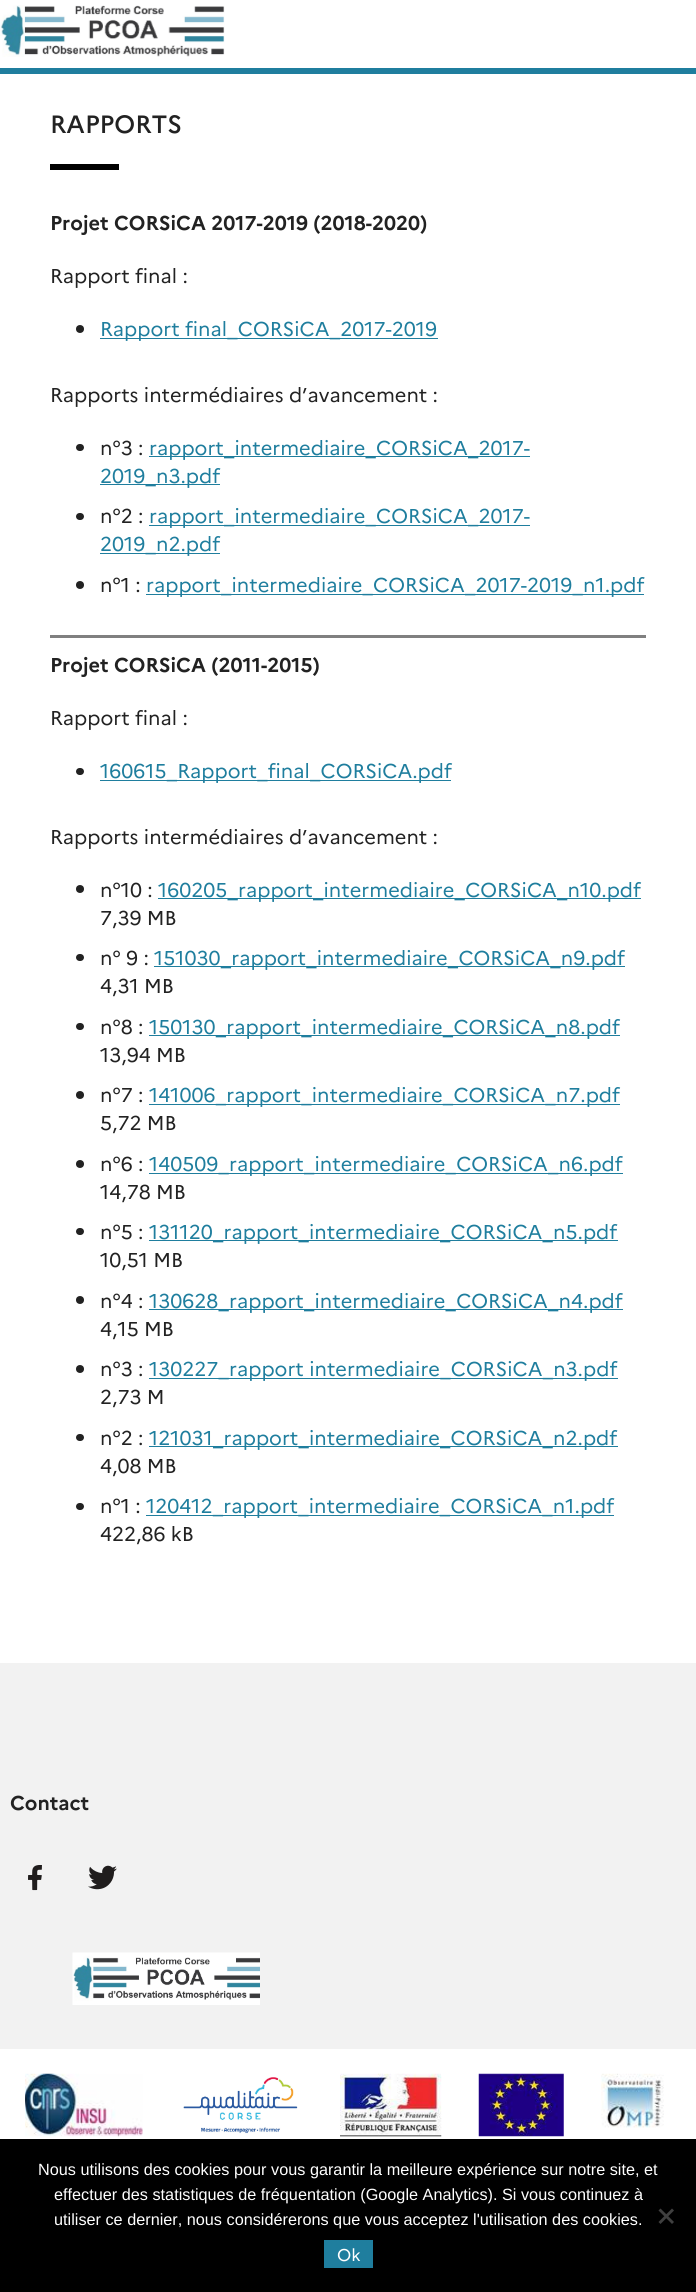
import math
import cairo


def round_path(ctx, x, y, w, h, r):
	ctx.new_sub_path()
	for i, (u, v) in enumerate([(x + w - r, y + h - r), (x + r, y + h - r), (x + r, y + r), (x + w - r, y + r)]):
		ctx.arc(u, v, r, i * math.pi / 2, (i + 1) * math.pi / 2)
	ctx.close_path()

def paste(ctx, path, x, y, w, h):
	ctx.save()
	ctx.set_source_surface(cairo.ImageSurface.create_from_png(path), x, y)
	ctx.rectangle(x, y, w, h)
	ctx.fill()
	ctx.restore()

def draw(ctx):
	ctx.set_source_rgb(1, 1, 1)
	ctx.paint()
	ctx.set_source_rgb(0.122, 0.494, 0.62)
	ctx.rectangle(0, 68, 696, 6)
	ctx.fill()
	paste(ctx, 'media/1.png', 0, 5, 225, 52)
	ctx.select_font_face('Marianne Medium')
	ctx.set_font_size(25)
	ctx.set_source_rgb(0.133, 0.133, 0.133)
	ctx.move_to(50, 133)
	ctx.show_text('RAPPORTS')
	ctx.set_source_rgb(0, 0, 0)
	ctx.rectangle(50, 164, 69, 6)
	ctx.fill()
	ctx.select_font_face('Marianne', cairo.FONT_SLANT_NORMAL, cairo.FONT_WEIGHT_BOLD)
	ctx.set_font_size(20)
	ctx.set_source_rgb(0.133, 0.133, 0.133)
	ctx.move_to(50, 230)
	ctx.show_text('Projet CORSiCA 2017-2019 (2018-2020)')
	ctx.select_font_face('Marianne')
	ctx.move_to(50, 283)
	ctx.show_text('Rapport final :')
	ctx.new_path()
	ctx.arc(80, 329, 4, 0, 2 * math.pi)
	ctx.fill()
	ctx.set_source_rgb(0.122, 0.494, 0.62)
	ctx.rectangle(100, 338, 338, 1)
	ctx.fill()
	ctx.move_to(100, 336)
	ctx.show_text('Rapport final_CORSiCA_2017-2019')
	ctx.set_source_rgb(0.133, 0.133, 0.133)
	ctx.move_to(50, 402)
	ctx.show_text('Rapports intermédiaires d’avancement :')
	round_path(ctx, 76, 444, 8, 7, 3.5)
	ctx.fill()
	ctx.move_to(100, 455)
	ctx.show_text('n°3 :')
	ctx.set_source_rgb(0.122, 0.494, 0.62)
	ctx.rectangle(149, 456, 381, 1)
	ctx.fill()
	ctx.move_to(149, 455)
	ctx.show_text('rapport_intermediaire_CORSiCA_2017-')
	ctx.rectangle(100, 484, 120, 1)
	ctx.fill()
	ctx.move_to(100, 483)
	ctx.show_text('2019_n3.pdf')
	ctx.set_source_rgb(0.133, 0.133, 0.133)
	round_path(ctx, 76, 513, 8, 7, 3.5)
	ctx.fill()
	ctx.move_to(100, 523)
	ctx.show_text('n°2 :')
	ctx.set_source_rgb(0.122, 0.494, 0.62)
	ctx.rectangle(149, 525, 381, 1)
	ctx.fill()
	ctx.move_to(149, 523)
	ctx.show_text('rapport_intermediaire_CORSiCA_2017-')
	ctx.rectangle(100, 553, 120, 1)
	ctx.fill()
	ctx.move_to(100, 551)
	ctx.show_text('2019_n2.pdf')
	ctx.set_source_rgb(0.133, 0.133, 0.133)
	ctx.new_path()
	ctx.arc(80, 585, 4, 0, 2 * math.pi)
	ctx.fill()
	ctx.move_to(100, 592)
	ctx.show_text('n°1 :')
	ctx.set_source_rgb(0.122, 0.494, 0.62)
	ctx.rectangle(146, 594, 498, 1)
	ctx.fill()
	ctx.move_to(146, 592)
	ctx.show_text('rapport_intermediaire_CORSiCA_2017-2019_n1.pdf')
	ctx.set_source_rgb(0.502, 0.502, 0.502)
	ctx.rectangle(50, 635, 596, 3)
	ctx.fill()
	ctx.select_font_face('Marianne', cairo.FONT_SLANT_NORMAL, cairo.FONT_WEIGHT_BOLD)
	ctx.set_source_rgb(0.133, 0.133, 0.133)
	ctx.move_to(50, 672)
	ctx.show_text('Projet CORSiCA (2011-2015)')
	ctx.select_font_face('Marianne')
	ctx.move_to(50, 725)
	ctx.show_text('Rapport final :')
	round_path(ctx, 76, 768, 8, 7, 3.5)
	ctx.fill()
	ctx.set_source_rgb(0.122, 0.494, 0.62)
	ctx.rectangle(100, 780, 351, 1)
	ctx.fill()
	ctx.move_to(100, 778)
	ctx.show_text('160615_Rapport_final_CORSiCA.pdf')
	ctx.set_source_rgb(0.133, 0.133, 0.133)
	ctx.move_to(50, 844)
	ctx.show_text('Rapports intermédiaires d’avancement :')
	ctx.new_path()
	ctx.arc(80, 889, 4, 0, 2 * math.pi)
	ctx.fill()
	ctx.move_to(100, 897)
	ctx.show_text('n°10 :')
	ctx.set_source_rgb(0.122, 0.494, 0.62)
	ctx.rectangle(158, 898, 483, 1)
	ctx.fill()
	ctx.move_to(158, 897)
	ctx.show_text('160205_rapport_intermediaire_CORSiCA_n10.pdf')
	ctx.set_source_rgb(0.133, 0.133, 0.133)
	ctx.move_to(100, 925)
	ctx.show_text('7,39 MB')
	round_path(ctx, 76, 954, 8, 7, 3.5)
	ctx.fill()
	ctx.move_to(100, 965)
	ctx.show_text('n° 9 :')
	ctx.set_source_rgb(0.122, 0.494, 0.62)
	ctx.rectangle(154, 966, 471, 1)
	ctx.fill()
	ctx.move_to(154, 965)
	ctx.show_text('151030_rapport_intermediaire_CORSiCA_n9.pdf')
	ctx.set_source_rgb(0.133, 0.133, 0.133)
	ctx.move_to(100, 993)
	ctx.show_text('4,31 MB')
	round_path(ctx, 76, 1023, 8, 7, 3.5)
	ctx.fill()
	ctx.move_to(100, 1034)
	ctx.show_text('n°8 :')
	ctx.set_source_rgb(0.122, 0.494, 0.62)
	ctx.rectangle(149, 1035, 471, 1)
	ctx.fill()
	ctx.move_to(149, 1034)
	ctx.show_text('150130_rapport_intermediaire_CORSiCA_n8.pdf')
	ctx.set_source_rgb(0.133, 0.133, 0.133)
	ctx.move_to(100, 1062)
	ctx.show_text('13,94 MB')
	ctx.new_path()
	ctx.arc(80, 1095, 4, 0, 2 * math.pi)
	ctx.fill()
	ctx.move_to(100, 1102)
	ctx.show_text('n°7 :')
	ctx.set_source_rgb(0.122, 0.494, 0.62)
	ctx.rectangle(149, 1104, 471, 1)
	ctx.fill()
	ctx.move_to(149, 1102)
	ctx.show_text('141006_rapport_intermediaire_CORSiCA_n7.pdf')
	ctx.set_source_rgb(0.133, 0.133, 0.133)
	ctx.move_to(100, 1130)
	ctx.show_text('5,72 MB')
	ctx.new_path()
	ctx.arc(80, 1164, 4, 0, 2 * math.pi)
	ctx.fill()
	ctx.move_to(100, 1171)
	ctx.show_text('n°6 :')
	ctx.set_source_rgb(0.122, 0.494, 0.62)
	ctx.rectangle(149, 1173, 474, 1)
	ctx.fill()
	ctx.move_to(149, 1171)
	ctx.show_text('140509_rapport_intermediaire_CORSiCA_n6.pdf')
	ctx.set_source_rgb(0.133, 0.133, 0.133)
	ctx.move_to(100, 1199)
	ctx.show_text('14,78 MB')
	round_path(ctx, 76, 1228, 8, 7, 3.5)
	ctx.fill()
	ctx.move_to(100, 1239)
	ctx.show_text('n°5 :')
	ctx.set_source_rgb(0.122, 0.494, 0.62)
	ctx.rectangle(149, 1240, 469, 1)
	ctx.fill()
	ctx.move_to(149, 1239)
	ctx.show_text('131120_rapport_intermediaire_CORSiCA_n5.pdf')
	ctx.set_source_rgb(0.133, 0.133, 0.133)
	ctx.move_to(100, 1267)
	ctx.show_text('10,51 MB')
	ctx.new_path()
	ctx.arc(80, 1300, 4, 0, 2 * math.pi)
	ctx.fill()
	ctx.move_to(100, 1308)
	ctx.show_text('n°4 :')
	ctx.set_source_rgb(0.122, 0.494, 0.62)
	ctx.rectangle(149, 1309, 474, 1)
	ctx.fill()
	ctx.move_to(149, 1308)
	ctx.show_text('130628_rapport_intermediaire_CORSiCA_n4.pdf')
	ctx.set_source_rgb(0.133, 0.133, 0.133)
	ctx.move_to(100, 1336)
	ctx.show_text('4,15 MB')
	ctx.new_path()
	ctx.arc(80, 1369, 4, 0, 2 * math.pi)
	ctx.fill()
	ctx.move_to(100, 1376)
	ctx.show_text('n°3 :')
	ctx.set_source_rgb(0.122, 0.494, 0.62)
	ctx.rectangle(149, 1378, 469, 1)
	ctx.fill()
	ctx.move_to(149, 1376)
	ctx.show_text('130227_rapport intermediaire_CORSiCA_n3.pdf')
	ctx.set_source_rgb(0.133, 0.133, 0.133)
	ctx.move_to(100, 1404)
	ctx.show_text('2,73 M')
	round_path(ctx, 76, 1434, 8, 7, 3.5)
	ctx.fill()
	ctx.move_to(100, 1445)
	ctx.show_text('n°2 :')
	ctx.set_source_rgb(0.122, 0.494, 0.62)
	ctx.rectangle(149, 1446, 469, 1)
	ctx.fill()
	ctx.move_to(149, 1445)
	ctx.show_text('121031_rapport_intermediaire_CORSiCA_n2.pdf')
	ctx.set_source_rgb(0.133, 0.133, 0.133)
	ctx.move_to(100, 1473)
	ctx.show_text('4,08 MB')
	round_path(ctx, 76, 1503, 8, 7, 3.5)
	ctx.fill()
	ctx.move_to(100, 1513)
	ctx.show_text('n°1 :')
	ctx.set_source_rgb(0.122, 0.494, 0.62)
	ctx.rectangle(146, 1515, 468, 1)
	ctx.fill()
	ctx.move_to(146, 1513)
	ctx.show_text('120412_rapport_intermediaire_CORSiCA_n1.pdf')
	ctx.set_source_rgb(0.133, 0.133, 0.133)
	ctx.move_to(100, 1541)
	ctx.show_text('422,86 kB')
	ctx.set_source_rgb(0.949, 0.949, 0.949)
	ctx.rectangle(0, 1663, 696, 386)
	ctx.fill()
	ctx.select_font_face('Marianne', cairo.FONT_SLANT_NORMAL, cairo.FONT_WEIGHT_BOLD)
	ctx.set_source_rgb(0.133, 0.133, 0.133)
	ctx.move_to(10, 1810)
	ctx.show_text('Contact')
	paste(ctx, 'media/2.png', 28, 1865, 14, 26)
	paste(ctx, 'media/3.png', 88, 1865, 29, 25)
	paste(ctx, 'media/4.png', 72, 1952, 188, 53)
	paste(ctx, 'media/5.png', 25, 2073, 118, 64)
	paste(ctx, 'media/6.png', 183, 2077, 115, 57)
	paste(ctx, 'media/7.png', 340, 2073, 102, 64)
	paste(ctx, 'media/8.png', 478, 2073, 86, 64)
	paste(ctx, 'media/9.png', 601, 2073, 63, 55)
	ctx.set_source_rgb(0, 0, 0)
	ctx.rectangle(0, 2139, 696, 153)
	ctx.fill()
	ctx.select_font_face('Liberation Sans')
	ctx.set_font_size(16.25)
	ctx.set_source_rgb(1, 1, 1)
	for x, y, s in [
		(38, 2175, 'Nous utilisons des cookies pour vous garantir la meilleure expérience sur notre site, et'),
		(54, 2200, 'effectuer des statistiques de fréquentation (Google Analytics). Si vous continuez à'),
		(54, 2225, 'utiliser ce dernier, nous considérerons que vous acceptez l\'utilisation des cookies.'),
	]:
		ctx.move_to(x, y)
		ctx.show_text(s)
	ctx.set_source_rgb(0.251, 0.251, 0.251)
	ctx.new_path()
	ctx.move_to(672, 2208.5)
	ctx.line_to(674, 2210.5)
	ctx.line_to(660.5, 2224)
	ctx.line_to(658.5, 2222)
	ctx.close_path()
	ctx.fill()
	ctx.new_path()
	ctx.move_to(658.5, 2210.5)
	ctx.line_to(660.5, 2208.5)
	ctx.line_to(674, 2222)
	ctx.line_to(672, 2224)
	ctx.close_path()
	ctx.fill()
	ctx.set_source_rgb(0.122, 0.494, 0.62)
	ctx.rectangle(324, 2240, 49, 28)
	ctx.fill()
	ctx.select_font_face('Marianne')
	ctx.set_font_size(17)
	ctx.set_source_rgb(1, 1, 1)
	ctx.move_to(337, 2261)
	ctx.show_text('Ok')


surface = cairo.ImageSurface(cairo.FORMAT_RGB24, 696, 2292)
ctx = cairo.Context(surface)
options = cairo.FontOptions()
options.set_hint_metrics(cairo.HINT_METRICS_OFF)
options.set_hint_style(cairo.HINT_STYLE_NONE)
ctx.set_font_options(options)
ctx.set_miter_limit(4)
draw(ctx)
surface.write_to_png('image.png')
